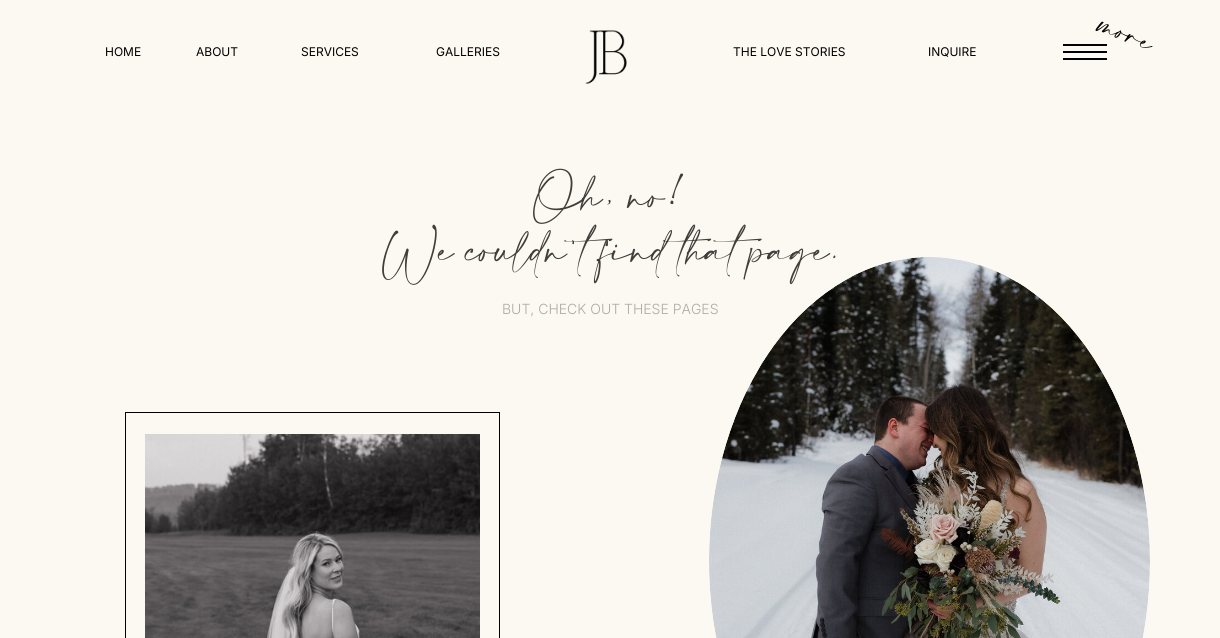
import math
import cairo


def paste(ctx, path, x, y, w, h):
	ctx.save()
	ctx.set_source_surface(cairo.ImageSurface.create_from_png(path), x, y)
	ctx.rectangle(x, y, w, h)
	ctx.fill()
	ctx.restore()

def draw(ctx):
	ctx.set_source_rgb(0.984, 0.973, 0.945)
	ctx.paint()
	ctx.select_font_face('Inter')
	ctx.set_font_size(12)
	ctx.set_source_rgb(0, 0, 0)
	for x, y, s in [
		(105, 56, 'HOME'),
		(196, 56, 'ABOUT'),
		(301, 56, 'SERVICES'),
		(436, 56, 'GALLERIES'),
	]:
		ctx.move_to(x, y)
		ctx.show_text(s)
	paste(ctx, 'media/1.png', 585, 30, 42, 54)
	ctx.move_to(733, 56)
	ctx.show_text('THE LOVE STORIES')
	ctx.move_to(928, 56)
	ctx.show_text('INQUIRE')
	ctx.new_path()
	ctx.move_to(1063, 58)
	ctx.line_to(1107, 58)
	ctx.line_to(1107, 60)
	ctx.line_to(1063, 60)
	ctx.close_path()
	ctx.move_to(1063, 51)
	ctx.line_to(1107, 51)
	ctx.line_to(1107, 53)
	ctx.line_to(1063, 53)
	ctx.close_path()
	ctx.move_to(1063, 44)
	ctx.line_to(1107, 44)
	ctx.line_to(1107, 46)
	ctx.line_to(1063, 46)
	ctx.close_path()
	ctx.fill()
	ctx.select_font_face('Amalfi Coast')
	ctx.set_font_size(22)
	ctx.save()
	ctx.translate(1097, 30)
	ctx.rotate(22 * math.pi / 180)
	ctx.move_to(0, 0)
	ctx.show_text('more')
	ctx.restore()
	ctx.set_font_size(30)
	ctx.set_source_rgb(0.247, 0.243, 0.235)
	ctx.move_to(532, 207)
	ctx.show_text('Oh, no!')
	ctx.move_to(382, 261)
	ctx.show_text('We couldn\'t find that page.')
	ctx.select_font_face('Inter Light')
	ctx.set_font_size(14)
	ctx.set_source_rgb(0.686, 0.671, 0.643)
	ctx.move_to(502, 314)
	ctx.show_text('BUT, CHECK OUT THESE PAGES')
	paste(ctx, 'media/2.png', 709, 257, 441, 381)
	ctx.rectangle(125.5, 412.5, 374, 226)
	ctx.set_source_rgb(0, 0, 0)
	ctx.set_line_width(1)
	ctx.stroke()
	paste(ctx, 'media/3.png', 145, 434, 335, 204)


surface = cairo.ImageSurface(cairo.FORMAT_RGB24, 1220, 638)
ctx = cairo.Context(surface)
options = cairo.FontOptions()
options.set_hint_metrics(cairo.HINT_METRICS_OFF)
options.set_hint_style(cairo.HINT_STYLE_NONE)
ctx.set_font_options(options)
ctx.set_miter_limit(4)
draw(ctx)
surface.write_to_png('image.png')
